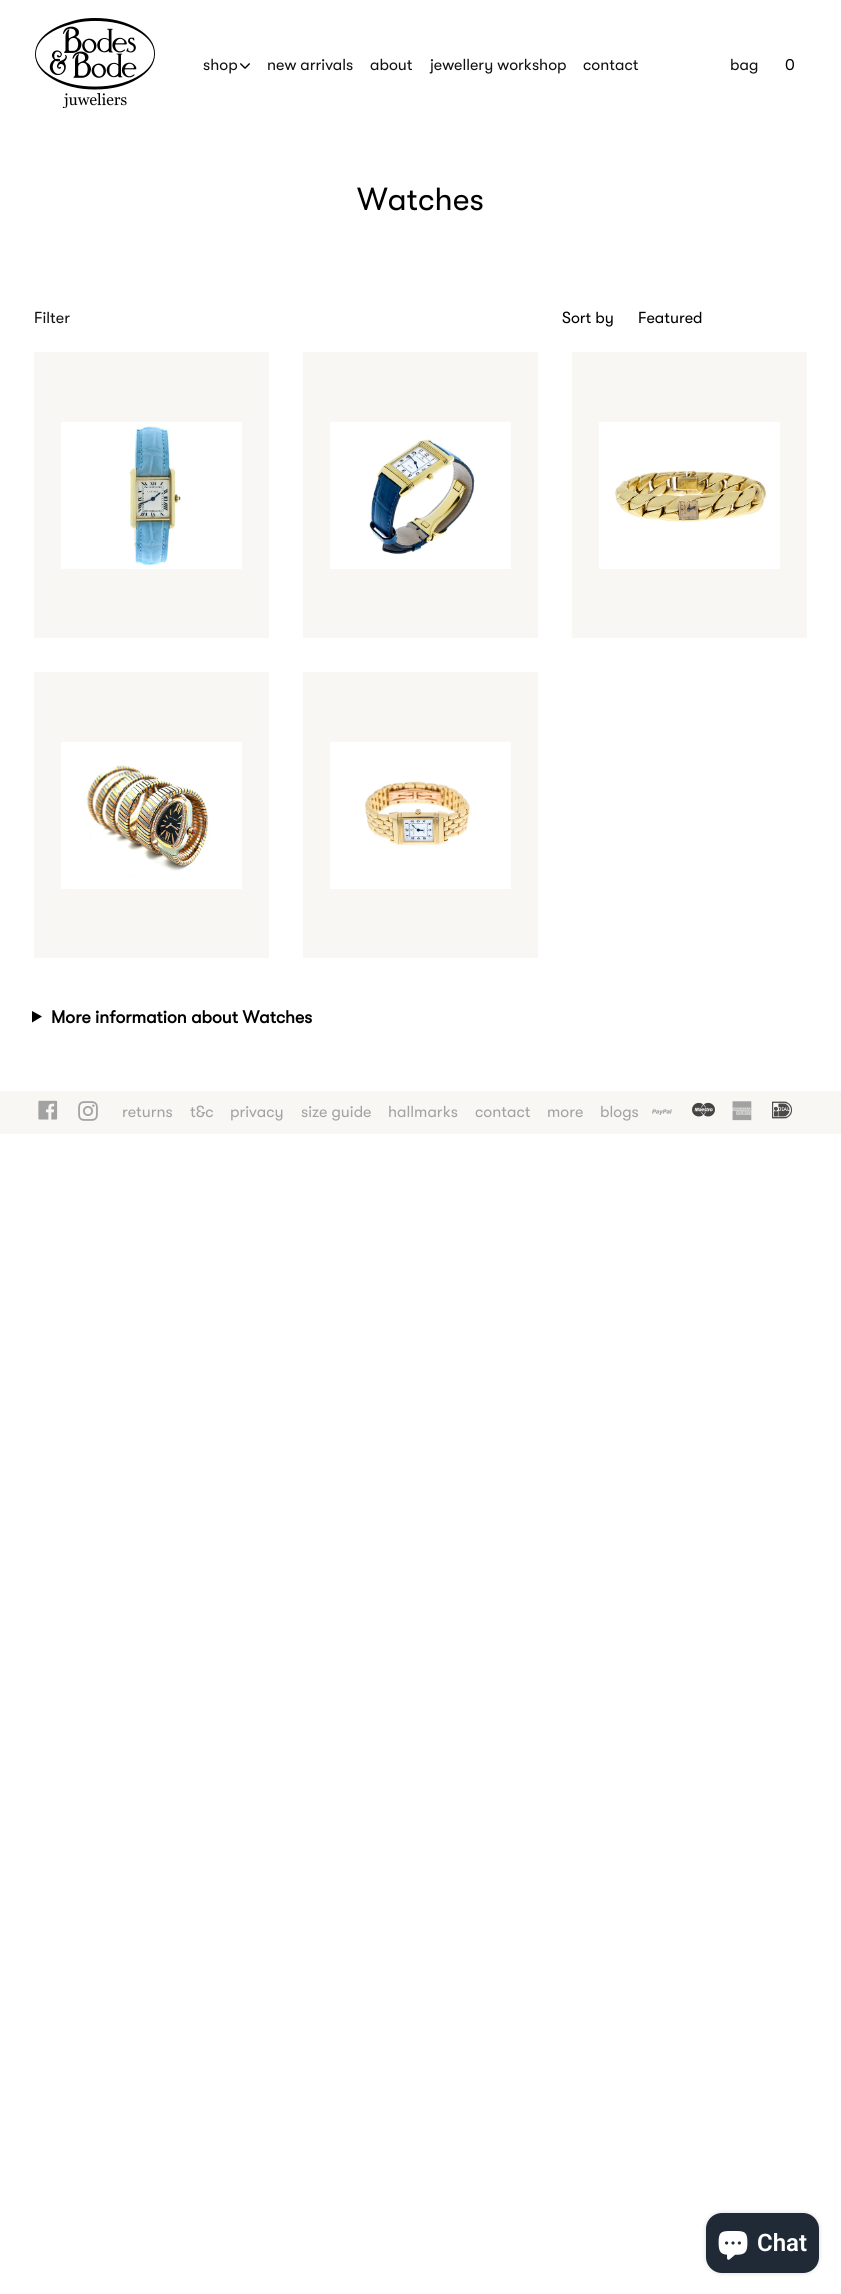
import math
import cairo


def round_path(ctx, x, y, w, h, r):
	ctx.new_sub_path()
	for i, (u, v) in enumerate([(x + w - r, y + h - r), (x + r, y + h - r), (x + r, y + r), (x + w - r, y + r)]):
		ctx.arc(u, v, r, i * math.pi / 2, (i + 1) * math.pi / 2)
	ctx.close_path()

def blur_box(ctx, x, y, w, h, r, blur, alpha):
	ctx.push_group_with_content(cairo.CONTENT_ALPHA)
	ctx.set_operator(cairo.OPERATOR_SOURCE)
	for i in range(15, -16, -2):
		e = blur * i / 6
		if min(w, h) + 2 * e > 0:
			ctx.set_source_rgba(0, 0, 0, alpha * math.erfc((i - 1) / 8.5) / 2)
			round_path(ctx, x - e, y - e, w + 2 * e, h + 2 * e, max(0, min(r + e + blur * .6, min(w, h) / 2 + e)))
			ctx.fill()
	ctx.mask(ctx.pop_group())

def paste(ctx, path, x, y, w, h):
	ctx.save()
	ctx.set_source_surface(cairo.ImageSurface.create_from_png(path), x, y)
	ctx.rectangle(x, y, w, h)
	ctx.fill()
	ctx.restore()

def draw(ctx):
	ctx.set_source_rgb(1, 1, 1)
	ctx.paint()
	paste(ctx, 'media/1.png', 35, 18, 120, 90)
	ctx.select_font_face('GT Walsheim')
	ctx.set_font_size(16)
	ctx.set_source_rgb(0.071, 0.071, 0.071)
	ctx.move_to(203, 70)
	ctx.show_text('shop')
	paste(ctx, 'media/2.png', 240, 63, 10, 6)
	for x, y, s in [
		(267, 70, 'new arrivals'),
		(370, 70, 'about'),
		(430, 70, 'jewellery workshop'),
		(583, 70, 'contact'),
		(730, 70, 'bag'),
	]:
		ctx.move_to(x, y)
		ctx.show_text(s)
	ctx.set_source_rgb(0, 0, 0)
	ctx.move_to(785, 70)
	ctx.show_text('0')
	ctx.set_font_size(32)
	ctx.move_to(357, 210)
	ctx.show_text('Watches')
	ctx.set_font_size(16)
	ctx.set_source_rgb(0.071, 0.071, 0.071)
	ctx.move_to(34, 323)
	ctx.show_text('Filter')
	ctx.set_source_rgb(0, 0, 0)
	ctx.move_to(562, 323)
	ctx.show_text('Sort by')
	ctx.move_to(638, 323)
	ctx.show_text('Featured')
	ctx.set_source_rgb(0.973, 0.965, 0.957)
	ctx.rectangle(34, 352, 235, 286)
	ctx.fill()
	paste(ctx, 'media/3.png', 61, 422, 181, 147)
	ctx.rectangle(303, 352, 235, 286)
	ctx.fill()
	paste(ctx, 'media/4.png', 330, 422, 181, 147)
	ctx.rectangle(572, 352, 235, 286)
	ctx.fill()
	paste(ctx, 'media/5.png', 599, 422, 181, 147)
	ctx.rectangle(34, 672, 235, 286)
	ctx.fill()
	paste(ctx, 'media/6.png', 61, 742, 181, 147)
	ctx.rectangle(303, 672, 235, 286)
	ctx.fill()
	paste(ctx, 'media/7.png', 330, 742, 181, 147)
	ctx.set_source_rgb(0, 0, 0)
	ctx.new_path()
	ctx.move_to(32, 1011)
	ctx.line_to(42, 1016.5)
	ctx.line_to(32, 1022.5)
	ctx.close_path()
	ctx.fill()
	ctx.select_font_face('GT Walsheim', cairo.FONT_SLANT_NORMAL, cairo.FONT_WEIGHT_BOLD)
	ctx.set_font_size(17.6)
	ctx.move_to(51, 1023)
	ctx.show_text('More information about Watches')
	ctx.set_source_rgb(0.973, 0.965, 0.957)
	ctx.rectangle(0, 1091, 841, 43)
	ctx.fill()
	paste(ctx, 'media/8.png', 38, 1100, 20, 20)
	paste(ctx, 'media/9.png', 78, 1101, 20, 20)
	ctx.select_font_face('GT Walsheim')
	ctx.set_font_size(16)
	ctx.set_source_rgb(0.635, 0.635, 0.635)
	for x, y, s in [
		(122, 1117, 'returns'),
		(190, 1117, 't&c'),
		(230, 1117, 'privacy'),
		(301, 1117, 'size guide'),
		(388, 1117, 'hallmarks'),
		(475, 1117, 'contact'),
		(547, 1117, 'more'),
		(600, 1117, 'blogs'),
	]:
		ctx.move_to(x, y)
		ctx.show_text(s)
	paste(ctx, 'media/10.png', 652, 1109, 20, 6)
	paste(ctx, 'media/11.png', 692, 1102, 23, 15)
	paste(ctx, 'media/12.png', 732, 1101, 20, 20)
	paste(ctx, 'media/13.png', 772, 1101, 20, 18)
	ctx.set_source_rgb(0, 0, 0)
	blur_box(ctx, 706, 2213, 113, 60, 16, 2.5, 0.15)
	ctx.set_source_rgb(0.125, 0.165, 0.212)
	round_path(ctx, 706, 2213, 113, 60, 16)
	ctx.fill()
	paste(ctx, 'media/14.png', 718, 2231, 30, 29)
	ctx.select_font_face('Roboto SemiBold')
	ctx.set_font_size(24)
	ctx.set_source_rgb(1, 1, 1)
	ctx.move_to(757, 2251)
	ctx.show_text('Chat')


surface = cairo.ImageSurface(cairo.FORMAT_RGB24, 841, 2294)
ctx = cairo.Context(surface)
options = cairo.FontOptions()
options.set_hint_metrics(cairo.HINT_METRICS_OFF)
options.set_hint_style(cairo.HINT_STYLE_NONE)
ctx.set_font_options(options)
ctx.set_miter_limit(4)
draw(ctx)
surface.write_to_png('image.png')
